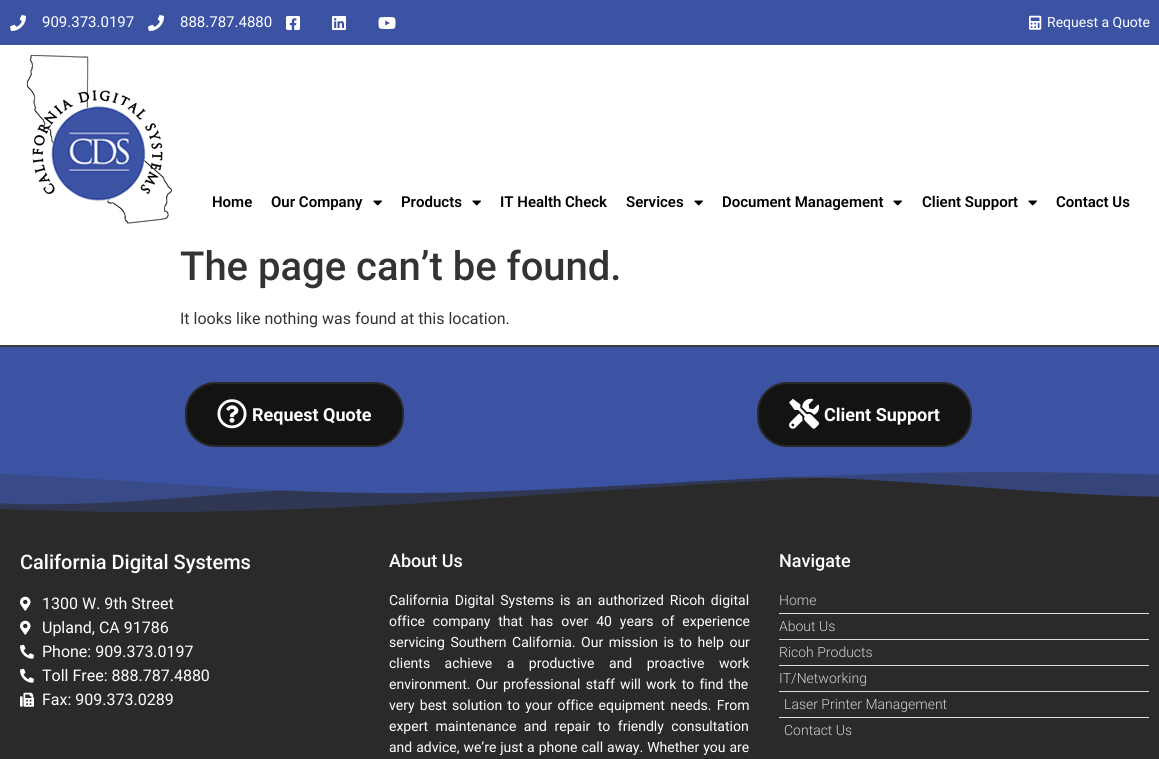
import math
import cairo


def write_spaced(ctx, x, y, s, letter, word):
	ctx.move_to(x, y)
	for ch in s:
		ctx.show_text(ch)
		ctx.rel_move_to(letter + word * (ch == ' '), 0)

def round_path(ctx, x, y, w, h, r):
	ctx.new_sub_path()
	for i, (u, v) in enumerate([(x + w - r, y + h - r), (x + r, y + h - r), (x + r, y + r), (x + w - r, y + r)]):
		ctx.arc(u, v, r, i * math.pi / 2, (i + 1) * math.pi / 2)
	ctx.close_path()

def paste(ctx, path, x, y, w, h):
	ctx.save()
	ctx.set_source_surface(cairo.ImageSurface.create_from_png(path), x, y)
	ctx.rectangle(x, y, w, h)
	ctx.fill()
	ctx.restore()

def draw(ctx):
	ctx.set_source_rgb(1, 1, 1)
	ctx.paint()
	ctx.set_source_rgb(0.235, 0.325, 0.639)
	ctx.rectangle(0, 0, 1159, 45)
	ctx.fill()
	paste(ctx, 'media/1.png', 10, 15, 16, 16)
	ctx.select_font_face('Roboto')
	ctx.set_font_size(15)
	ctx.set_source_rgb(1, 1, 1)
	ctx.move_to(42, 27)
	ctx.show_text('909.373.0197')
	paste(ctx, 'media/1.png', 148, 15, 16, 16)
	ctx.move_to(180, 27)
	ctx.show_text('888.787.4880')
	paste(ctx, 'media/2.png', 286, 16, 14, 14)
	paste(ctx, 'media/3.png', 332, 16, 14, 14)
	paste(ctx, 'media/4.png', 378, 17, 18, 12)
	paste(ctx, 'media/5.png', 1029, 15, 13, 15)
	ctx.set_font_size(14)
	ctx.move_to(1047, 27)
	ctx.show_text('Request a Quote')
	paste(ctx, 'media/6.png', 26, 55, 147, 169)
	ctx.select_font_face('Roboto SemiBold')
	ctx.set_font_size(15)
	ctx.set_source_rgb(0.008, 0, 0)
	ctx.move_to(212, 207)
	ctx.show_text('Home')
	ctx.move_to(271, 207)
	ctx.show_text('Our Company')
	paste(ctx, 'media/7.png', 373, 200, 9, 6)
	ctx.move_to(401, 207)
	ctx.show_text('Products')
	paste(ctx, 'media/7.png', 472, 200, 9, 6)
	ctx.move_to(500, 207)
	ctx.show_text('IT Health Check')
	ctx.move_to(626, 207)
	ctx.show_text('Services')
	paste(ctx, 'media/7.png', 694, 200, 9, 6)
	ctx.move_to(722, 207)
	ctx.show_text('Document Management')
	paste(ctx, 'media/7.png', 893, 200, 9, 6)
	ctx.move_to(922, 207)
	ctx.show_text('Client Support')
	paste(ctx, 'media/7.png', 1028, 200, 9, 6)
	ctx.move_to(1056, 207)
	ctx.show_text('Contact Us')
	ctx.select_font_face('Roboto Medium')
	ctx.set_font_size(40)
	ctx.set_source_rgb(0.2, 0.2, 0.2)
	ctx.move_to(180, 280)
	ctx.show_text('The page can’t be found.')
	ctx.select_font_face('Roboto')
	ctx.set_font_size(16)
	ctx.move_to(180, 324)
	ctx.show_text('It looks like nothing was found at this location.')
	ctx.set_source_rgb(0.235, 0.325, 0.639)
	ctx.rectangle(0, 347, 1159, 120)
	ctx.fill()
	ctx.set_source_rgb(0.235, 0.235, 0.235)
	ctx.rectangle(0, 345, 1159, 2)
	ctx.fill()
	ctx.set_source_rgb(0.075, 0.075, 0.075)
	round_path(ctx, 186, 383, 217, 63, 29)
	ctx.fill_preserve()
	ctx.set_source_rgb(0.161, 0.161, 0.161)
	ctx.stroke()
	paste(ctx, 'media/8.png', 217, 399, 30, 30)
	ctx.select_font_face('Roboto', cairo.FONT_SLANT_NORMAL, cairo.FONT_WEIGHT_BOLD)
	ctx.set_font_size(18)
	ctx.set_source_rgb(1, 1, 1)
	ctx.move_to(252, 421)
	ctx.show_text('Request Quote')
	ctx.set_source_rgb(0.075, 0.075, 0.075)
	round_path(ctx, 758, 383, 213, 63, 29)
	ctx.fill_preserve()
	ctx.set_source_rgb(0.161, 0.161, 0.161)
	ctx.stroke()
	paste(ctx, 'media/9.png', 789, 398, 31, 31)
	ctx.set_source_rgb(1, 1, 1)
	ctx.move_to(824, 421)
	ctx.show_text('Client Support')
	ctx.set_source_rgb(0.165, 0.165, 0.165)
	ctx.rectangle(0, 472, 1159, 287)
	ctx.fill()
	paste(ctx, 'media/10.png', 0, 467, 1159, 45)
	ctx.select_font_face('Roboto Medium')
	ctx.set_font_size(20)
	ctx.set_source_rgb(1, 1, 1)
	ctx.move_to(20, 569)
	ctx.show_text('California Digital Systems')
	paste(ctx, 'media/11.png', 20, 596, 11, 15)
	ctx.select_font_face('Roboto')
	ctx.set_font_size(16)
	ctx.move_to(42, 609)
	ctx.show_text('1300 W. 9th Street')
	paste(ctx, 'media/11.png', 20, 620, 11, 15)
	ctx.move_to(42, 633)
	ctx.show_text('Upland, CA 91786')
	paste(ctx, 'media/12.png', 20, 644, 14, 15)
	ctx.move_to(42, 657)
	ctx.show_text('Phone: 909.373.0197')
	paste(ctx, 'media/12.png', 20, 668, 14, 15)
	ctx.move_to(42, 681)
	ctx.show_text('Toll Free: 888.787.4880')
	paste(ctx, 'media/13.png', 20, 692, 14, 15)
	ctx.move_to(42, 705)
	ctx.show_text('Fax: 909.373.0289')
	ctx.select_font_face('Roboto Medium')
	ctx.set_font_size(18)
	ctx.move_to(389, 567)
	ctx.show_text('About Us')
	ctx.select_font_face('Roboto')
	ctx.set_font_size(14)
	write_spaced(ctx, 389, 605, 'California Digital Systems is an authorized Ricoh digital', 0, 2.5)
	write_spaced(ctx, 389, 626, 'office company that has over 40 years of experience', 0, 4.5)
	write_spaced(ctx, 389, 647, 'servicing Southern California. Our mission is to help our', 0, 2)
	write_spaced(ctx, 389, 668, 'clients achieve a productive and proactive work', 0, 11)
	write_spaced(ctx, 389, 689, 'environment. Our professional staff will work to find the', 0, 1.75)
	write_spaced(ctx, 389, 710, 'very best solution to your office equipment needs. From', 0, 1.75)
	write_spaced(ctx, 389, 731, 'expert maintenance and repair to friendly consultation', 0, 4)
	write_spaced(ctx, 389, 752, 'and advice, we’re just a phone call away. Whether you are', 0, 0.5)
	ctx.select_font_face('Roboto Medium')
	ctx.set_font_size(18)
	ctx.move_to(779, 567)
	ctx.show_text('Navigate')
	ctx.select_font_face('Roboto Light')
	ctx.set_font_size(14)
	ctx.set_source_rgb(0.824, 0.824, 0.824)
	ctx.move_to(779, 605)
	ctx.show_text('Home')
	ctx.set_source_rgb(0.867, 0.867, 0.867)
	ctx.rectangle(779, 613, 370, 1)
	ctx.fill()
	ctx.set_source_rgb(0.824, 0.824, 0.824)
	ctx.move_to(779, 631)
	ctx.show_text('About Us')
	ctx.set_source_rgb(0.867, 0.867, 0.867)
	ctx.rectangle(779, 639, 370, 1)
	ctx.fill()
	ctx.set_source_rgb(0.824, 0.824, 0.824)
	ctx.move_to(779, 657)
	ctx.show_text('Ricoh Products')
	ctx.set_source_rgb(0.867, 0.867, 0.867)
	ctx.rectangle(779, 665, 370, 1)
	ctx.fill()
	ctx.set_source_rgb(0.824, 0.824, 0.824)
	ctx.move_to(779, 683)
	ctx.show_text('IT/Networking')
	ctx.set_source_rgb(0.867, 0.867, 0.867)
	ctx.rectangle(779, 691, 370, 1)
	ctx.fill()
	ctx.set_source_rgb(0.824, 0.824, 0.824)
	ctx.move_to(784, 709)
	ctx.show_text('Laser Printer Management')
	ctx.set_source_rgb(0.867, 0.867, 0.867)
	ctx.rectangle(779, 717, 370, 1)
	ctx.fill()
	ctx.set_source_rgb(0.824, 0.824, 0.824)
	ctx.move_to(784, 735)
	ctx.show_text('Contact Us')


surface = cairo.ImageSurface(cairo.FORMAT_RGB24, 1159, 759)
ctx = cairo.Context(surface)
options = cairo.FontOptions()
options.set_hint_metrics(cairo.HINT_METRICS_OFF)
options.set_hint_style(cairo.HINT_STYLE_NONE)
ctx.set_font_options(options)
ctx.set_miter_limit(4)
draw(ctx)
surface.write_to_png('image.png')
